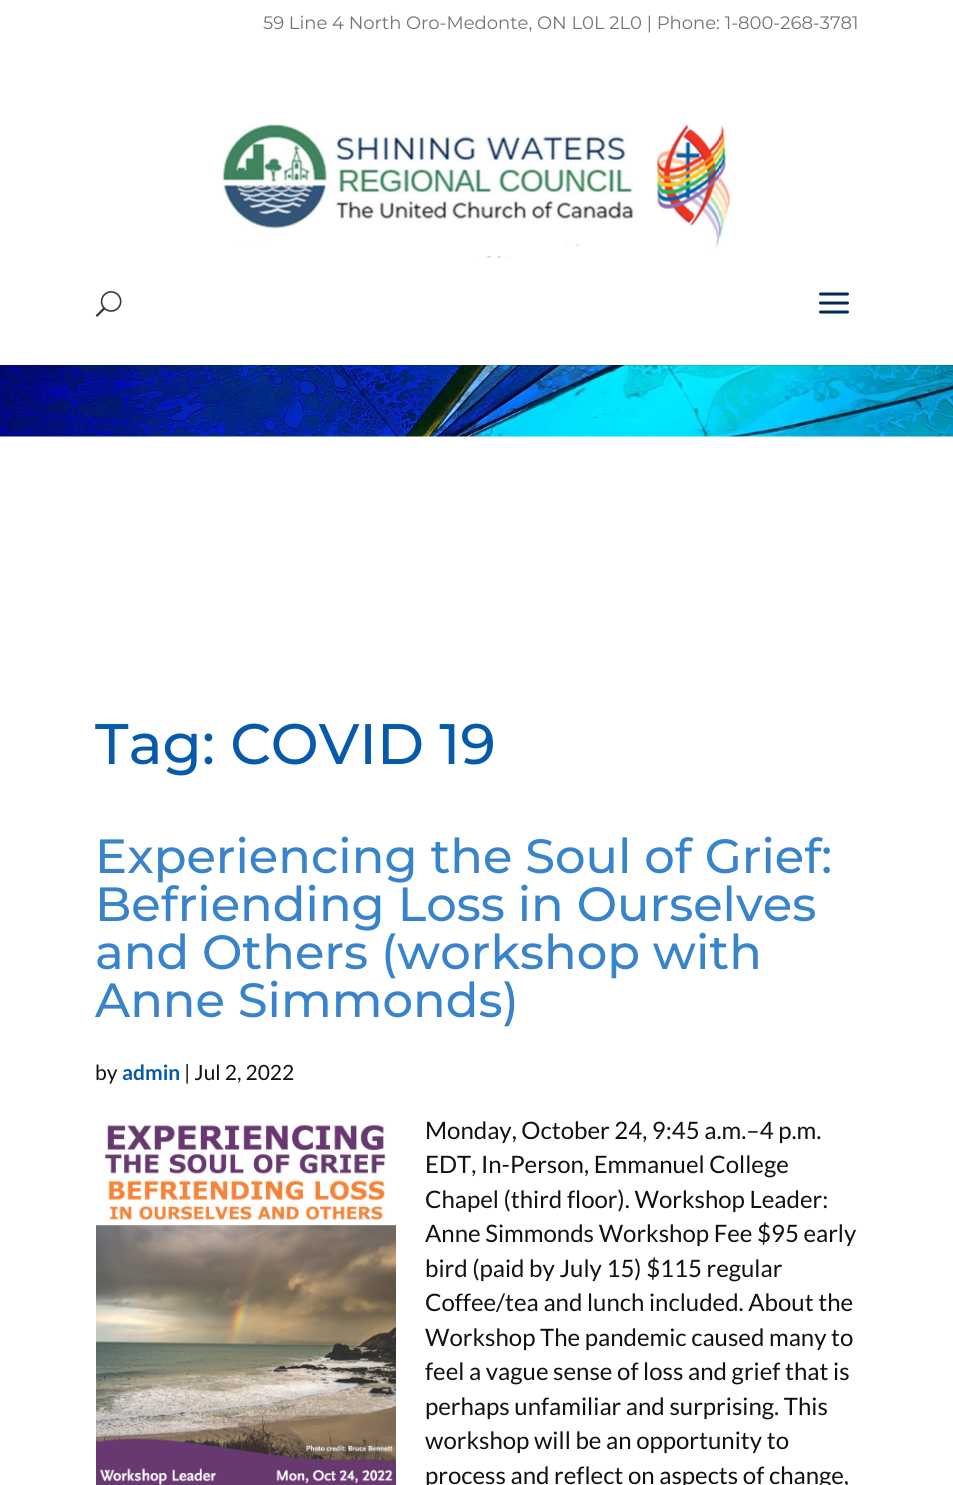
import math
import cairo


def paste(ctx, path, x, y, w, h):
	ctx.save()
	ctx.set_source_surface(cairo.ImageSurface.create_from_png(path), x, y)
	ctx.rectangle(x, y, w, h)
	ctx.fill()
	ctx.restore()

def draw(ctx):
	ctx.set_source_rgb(1, 1, 1)
	ctx.paint()
	ctx.select_font_face('Montserrat')
	ctx.set_font_size(18)
	ctx.set_source_rgb(0.451, 0.451, 0.451)
	ctx.move_to(263, 29)
	ctx.show_text('59 Line 4 North Oro-Medonte, ON L0L 2L0 | Phone: 1-800-268-3781')
	paste(ctx, 'media/4.png', 0, 365, 953, 72)
	ctx.set_source_rgba(0, 0, 0, 0.1)
	ctx.rectangle(0, 365, 953, 1)
	ctx.fill()
	paste(ctx, 'media/1.png', 222, 124, 509, 134)
	paste(ctx, 'media/2.png', 95, 291, 27, 26)
	paste(ctx, 'media/3.png', 819, 292, 30, 22)
	ctx.select_font_face('Montserrat Medium')
	ctx.set_font_size(57)
	ctx.set_source_rgb(0.024, 0.353, 0.663)
	ctx.move_to(95, 764)
	ctx.show_text('Tag: COVID 19')
	ctx.set_font_size(48)
	ctx.set_source_rgb(0.22, 0.518, 0.8)
	for x, y, s in [
		(95, 873, 'Experiencing the Soul of Grief:'),
		(95, 921, 'Befriending Loss in Ourselves'),
		(95, 969, 'and Others (workshop with'),
		(95, 1017, 'Anne Simmonds)'),
	]:
		ctx.move_to(x, y)
		ctx.show_text(s)
	ctx.select_font_face('Lato')
	ctx.set_font_size(21)
	ctx.set_source_rgb(0.067, 0.067, 0.067)
	ctx.move_to(95, 1080)
	ctx.show_text('by')
	ctx.select_font_face('Lato', cairo.FONT_SLANT_NORMAL, cairo.FONT_WEIGHT_BOLD)
	ctx.set_source_rgb(0.024, 0.353, 0.663)
	ctx.move_to(122, 1080)
	ctx.show_text('admin')
	ctx.select_font_face('Lato')
	ctx.set_source_rgb(0.067, 0.067, 0.067)
	ctx.move_to(184, 1080)
	ctx.show_text('| Jul 2, 2022')
	paste(ctx, 'media/5.png', 96, 1123, 300, 362)
	ctx.set_font_size(24)
	for x, y, s in [
		(425, 1139, 'Monday, October 24, 9:45 a.m.–4 p.m.'),
		(425, 1173, 'EDT, In-Person, Emmanuel College'),
		(425, 1208, 'Chapel (third floor). Workshop Leader:'),
		(425, 1242, 'Anne Simmonds Workshop Fee $95 early'),
		(425, 1277, 'bird (paid by July 15) $115 regular'),
		(425, 1311, 'Coffee/tea and lunch included. About the'),
		(425, 1346, 'Workshop The pandemic caused many to'),
		(425, 1380, 'feel a vague sense of loss and grief that is'),
		(425, 1415, 'perhaps unfamiliar and surprising. This'),
		(425, 1449, 'workshop will be an opportunity to'),
		(425, 1484, 'process and reflect on aspects of change,'),
	]:
		ctx.move_to(x, y)
		ctx.show_text(s)


surface = cairo.ImageSurface(cairo.FORMAT_RGB24, 953, 1485)
ctx = cairo.Context(surface)
options = cairo.FontOptions()
options.set_hint_metrics(cairo.HINT_METRICS_OFF)
options.set_hint_style(cairo.HINT_STYLE_NONE)
ctx.set_font_options(options)
ctx.set_miter_limit(4)
draw(ctx)
surface.write_to_png('image.png')
